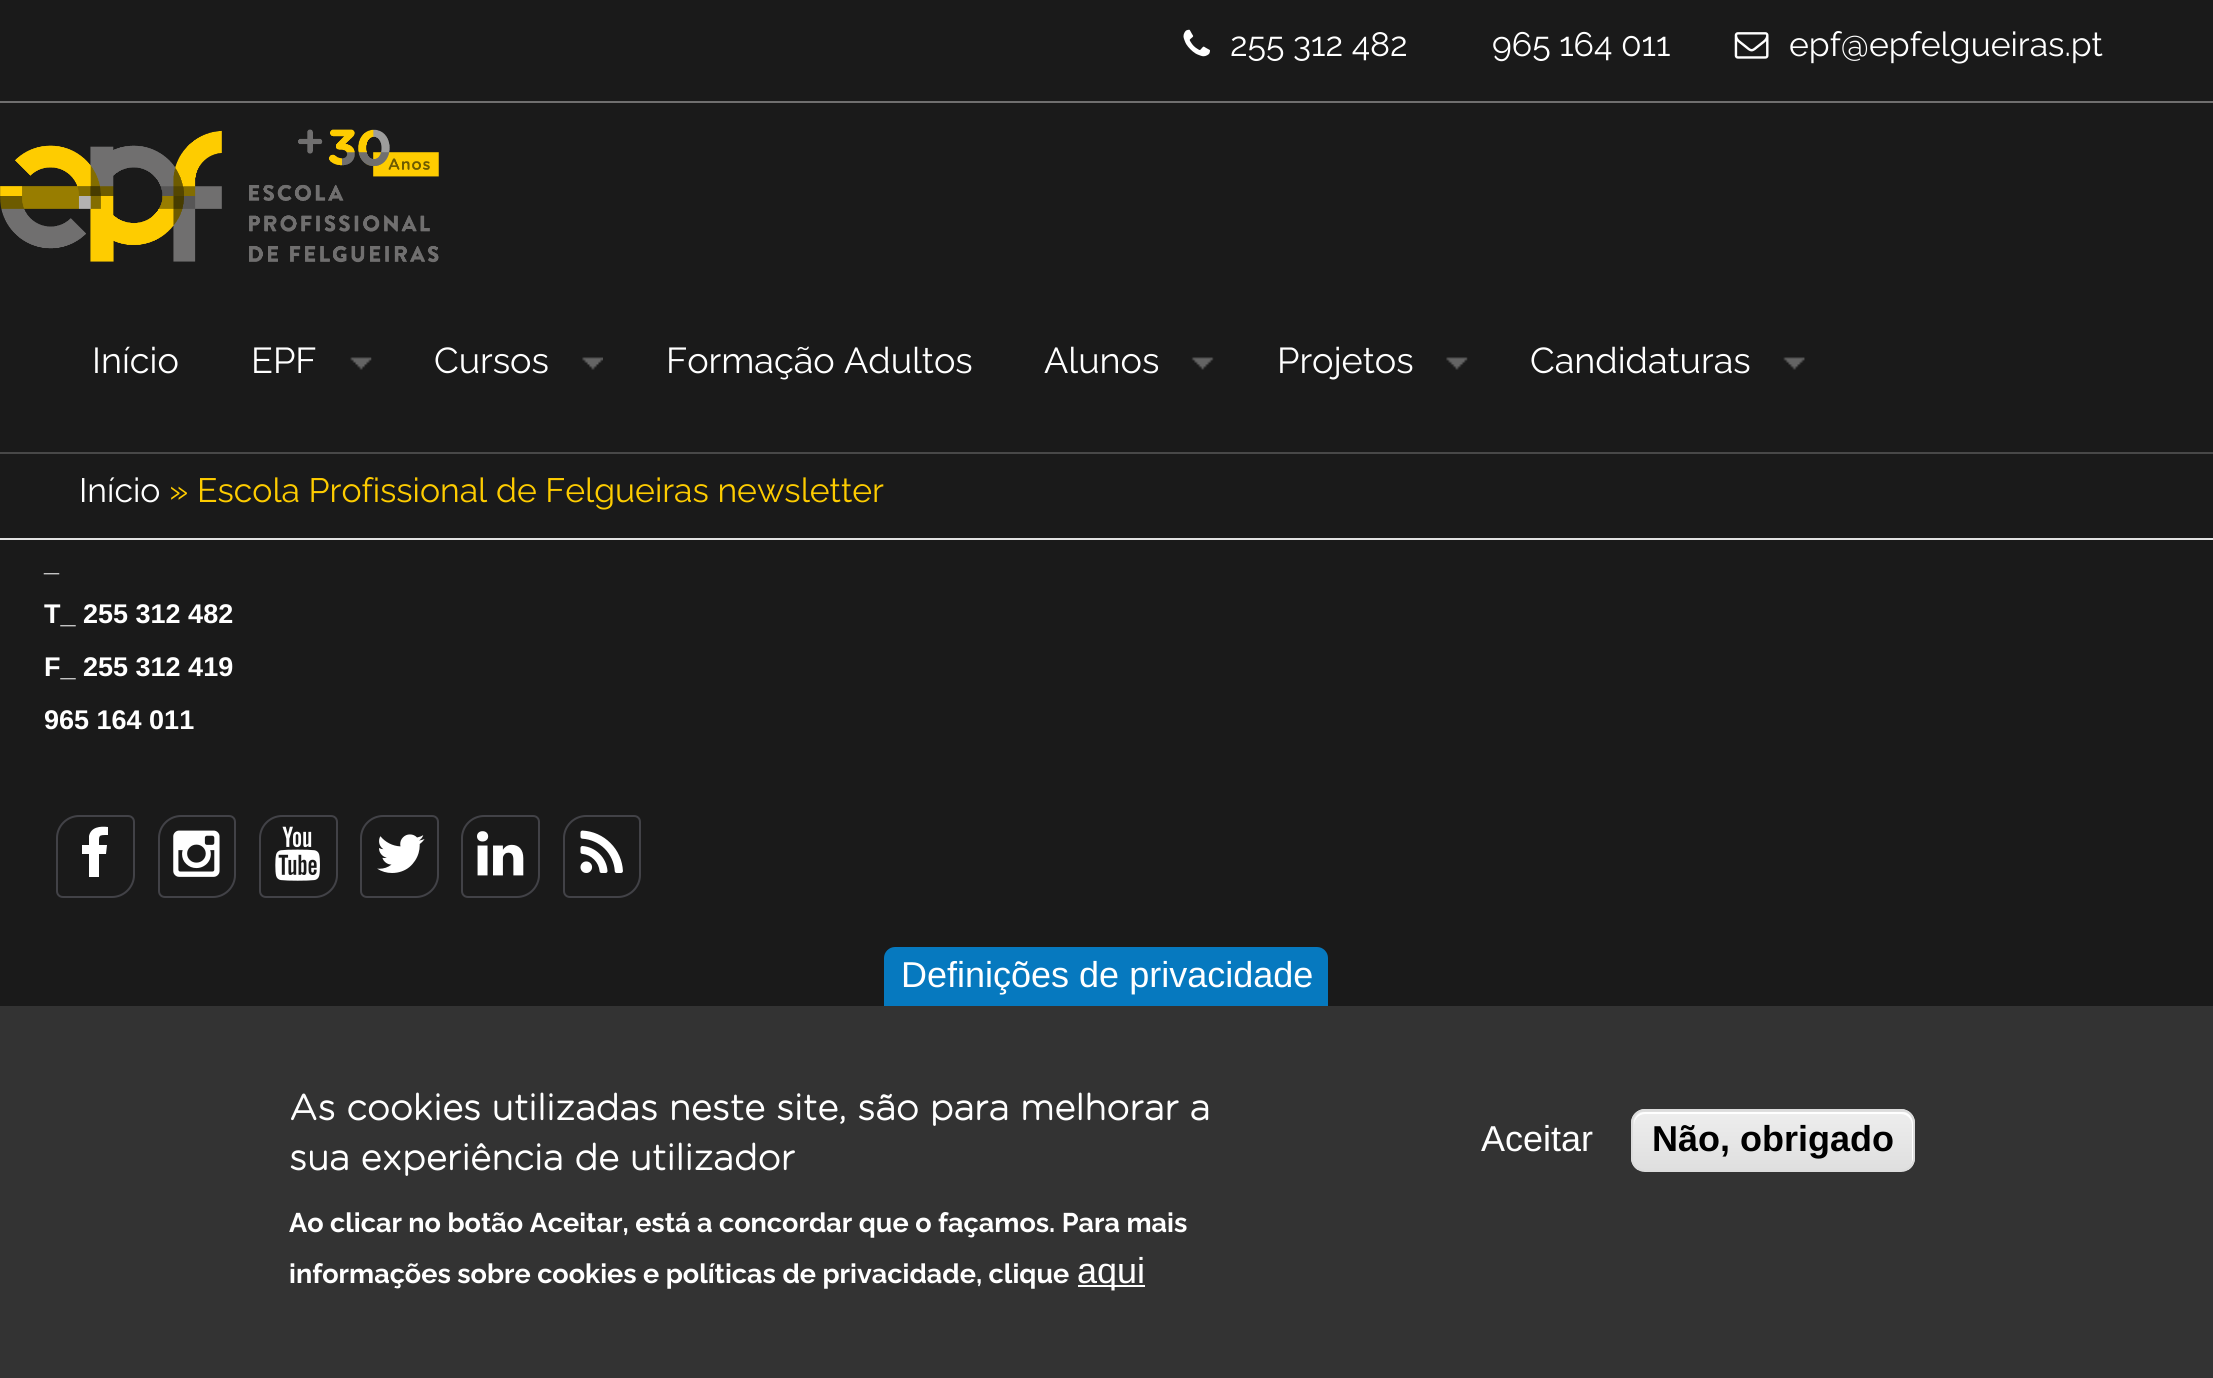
import math
import cairo


def round_path(ctx, x, y, w, h, r):
	ctx.new_sub_path()
	for i, (u, v) in enumerate([(x + w - r, y + h - r), (x + r, y + h - r), (x + r, y + r), (x + w - r, y + r)]):
		ctx.arc(u, v, r, i * math.pi / 2, (i + 1) * math.pi / 2)
	ctx.close_path()

def paste(ctx, path, x, y, w, h):
	ctx.save()
	ctx.set_source_surface(cairo.ImageSurface.create_from_png(path), x, y)
	ctx.rectangle(x, y, w, h)
	ctx.fill()
	ctx.restore()

def draw(ctx):
	ctx.set_source_rgb(0.102, 0.102, 0.102)
	ctx.paint()
	ctx.set_source_rgb(0.886, 0.886, 0.886)
	ctx.rectangle(0, 538, 2213, 2)
	ctx.fill()
	ctx.set_source_rgb(0.439, 0.435, 0.435)
	ctx.rectangle(0, 101, 2213, 2)
	ctx.fill()
	paste(ctx, 'media/1.png', 1183, 29, 27, 28)
	ctx.select_font_face('Raleway')
	ctx.set_font_size(33.75)
	ctx.set_source_rgb(1, 1, 1)
	ctx.move_to(1230, 56)
	ctx.show_text('255 312 482')
	ctx.move_to(1492, 56)
	ctx.show_text('965 164 011')
	paste(ctx, 'media/2.png', 1734, 32, 35, 27)
	ctx.move_to(1789, 56)
	ctx.show_text('epf@epfelgueiras.pt')
	paste(ctx, 'media/3.png', 0, 129, 439, 134)
	ctx.set_font_size(36)
	ctx.move_to(92, 373)
	ctx.show_text('Início')
	ctx.move_to(251, 373)
	ctx.show_text('EPF')
	paste(ctx, 'media/4.png', 350, 357, 22, 13)
	ctx.move_to(434, 373)
	ctx.show_text('Cursos')
	paste(ctx, 'media/5.png', 582, 357, 21, 13)
	ctx.move_to(666, 373)
	ctx.show_text('Formação Adultos')
	ctx.move_to(1044, 373)
	ctx.show_text('Alunos')
	paste(ctx, 'media/6.png', 1191, 357, 23, 13)
	ctx.move_to(1277, 373)
	ctx.show_text('Projetos')
	paste(ctx, 'media/7.png', 1446, 357, 22, 13)
	ctx.move_to(1530, 373)
	ctx.show_text('Candidaturas')
	paste(ctx, 'media/8.png', 1783, 357, 22, 13)
	ctx.set_source_rgb(0.282, 0.282, 0.282)
	ctx.rectangle(0, 452, 2213, 2)
	ctx.fill()
	ctx.set_font_size(33.75)
	ctx.set_source_rgb(1, 1, 1)
	ctx.move_to(79, 502)
	ctx.show_text('Início')
	ctx.set_source_rgb(0.996, 0.8, 0)
	ctx.move_to(169, 502)
	ctx.show_text('» Escola Profissional de Felgueiras newsletter')
	ctx.select_font_face('Liberation Sans', cairo.FONT_SLANT_NORMAL, cairo.FONT_WEIGHT_BOLD)
	ctx.set_font_size(27)
	ctx.set_source_rgb(1, 1, 1)
	for x, y, s in [
		(44, 571, '_'),
		(44, 623, 'T_ 255 312 482'),
		(44, 676, 'F_ 255 312 419'),
		(44, 729, '965 164 011'),
	]:
		ctx.move_to(x, y)
		ctx.show_text(s)
	ctx.new_path()
	ctx.move_to(79, 816)
	ctx.line_to(128, 816)
	ctx.curve_to(131.5, 816, 134, 818.5, 134, 822)
	ctx.line_to(134, 875)
	ctx.curve_to(134, 887, 124, 897, 112, 897)
	ctx.line_to(63, 897)
	ctx.curve_to(59.5, 897, 57, 894.5, 57, 891)
	ctx.line_to(57, 838)
	ctx.curve_to(57, 826, 67, 816, 79, 816)
	ctx.close_path()
	ctx.set_source_rgb(0.259, 0.259, 0.278)
	ctx.stroke()
	ctx.set_source_rgb(1, 1, 1)
	ctx.new_path()
	ctx.move_to(82, 854)
	ctx.line_to(82, 845)
	ctx.line_to(89, 845)
	ctx.line_to(89, 836)
	ctx.curve_to(91, 827, 100, 826, 108, 827)
	ctx.line_to(108, 835)
	ctx.curve_to(98, 835, 99, 835, 99, 845)
	ctx.line_to(107, 845)
	ctx.line_to(106, 854)
	ctx.line_to(99, 854)
	ctx.line_to(99, 877)
	ctx.line_to(89, 877)
	ctx.line_to(89, 854)
	ctx.close_path()
	ctx.fill()
	ctx.new_path()
	ctx.move_to(181, 816)
	ctx.line_to(229, 816)
	ctx.curve_to(232.5, 816, 235, 818.5, 235, 822)
	ctx.line_to(235, 875)
	ctx.curve_to(235, 887, 225, 897, 213, 897)
	ctx.line_to(165, 897)
	ctx.curve_to(161.5, 897, 159, 894.5, 159, 891)
	ctx.line_to(159, 838)
	ctx.curve_to(159, 826, 169, 816, 181, 816)
	ctx.close_path()
	ctx.set_source_rgb(0.259, 0.259, 0.278)
	ctx.stroke()
	paste(ctx, 'media/9.png', 173, 830, 47, 47)
	ctx.new_path()
	ctx.move_to(282, 816)
	ctx.line_to(331, 816)
	ctx.curve_to(334.5, 816, 337, 818.5, 337, 822)
	ctx.line_to(337, 875)
	ctx.curve_to(337, 887, 327, 897, 315, 897)
	ctx.line_to(266, 897)
	ctx.curve_to(262.5, 897, 260, 894.5, 260, 891)
	ctx.line_to(260, 838)
	ctx.curve_to(260, 826, 270, 816, 282, 816)
	ctx.close_path()
	ctx.stroke()
	paste(ctx, 'media/10.png', 275, 826, 45, 55)
	ctx.new_path()
	ctx.move_to(383, 816)
	ctx.line_to(432, 816)
	ctx.curve_to(435.5, 816, 438, 818.5, 438, 822)
	ctx.line_to(438, 875)
	ctx.curve_to(438, 887, 428, 897, 416, 897)
	ctx.line_to(367, 897)
	ctx.curve_to(363.5, 897, 361, 894.5, 361, 891)
	ctx.line_to(361, 838)
	ctx.curve_to(361, 826, 371, 816, 383, 816)
	ctx.close_path()
	ctx.stroke()
	paste(ctx, 'media/11.png', 377, 834, 48, 39)
	ctx.new_path()
	ctx.move_to(484, 816)
	ctx.line_to(533, 816)
	ctx.curve_to(536.5, 816, 539, 818.5, 539, 822)
	ctx.line_to(539, 875)
	ctx.curve_to(539, 887, 529, 897, 517, 897)
	ctx.line_to(468, 897)
	ctx.curve_to(464.5, 897, 462, 894.5, 462, 891)
	ctx.line_to(462, 838)
	ctx.curve_to(462, 826, 472, 816, 484, 816)
	ctx.close_path()
	ctx.stroke()
	paste(ctx, 'media/12.png', 477, 831, 47, 45)
	ctx.new_path()
	ctx.move_to(586, 816)
	ctx.line_to(634, 816)
	ctx.curve_to(637.5, 816, 640, 818.5, 640, 822)
	ctx.line_to(640, 875)
	ctx.curve_to(640, 887, 630, 897, 618, 897)
	ctx.line_to(570, 897)
	ctx.curve_to(566.5, 897, 564, 894.5, 564, 891)
	ctx.line_to(564, 838)
	ctx.curve_to(564, 826, 574, 816, 586, 816)
	ctx.close_path()
	ctx.stroke()
	paste(ctx, 'media/13.png', 580, 830, 43, 43)
	ctx.set_source_rgb(0.027, 0.475, 0.749)
	ctx.new_path()
	ctx.move_to(895, 947)
	ctx.line_to(1317, 947)
	ctx.curve_to(1323, 947, 1328, 952, 1328, 958)
	ctx.line_to(1328, 1006)
	ctx.line_to(884, 1006)
	ctx.line_to(884, 958)
	ctx.curve_to(884, 952, 889, 947, 895, 947)
	ctx.close_path()
	ctx.fill()
	ctx.select_font_face('Liberation Sans')
	ctx.set_font_size(36)
	ctx.set_source_rgb(1, 1, 1)
	ctx.move_to(901, 987)
	ctx.show_text('Definições de privacidade')
	ctx.set_source_rgb(0.2, 0.2, 0.2)
	ctx.rectangle(0, 1006, 2213, 372)
	ctx.fill()
	ctx.select_font_face('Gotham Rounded', cairo.FONT_SLANT_NORMAL, cairo.FONT_WEIGHT_BOLD)
	ctx.set_source_rgb(1, 1, 1)
	ctx.move_to(289, 1120)
	ctx.show_text('As cookies utilizadas neste site, são para melhorar a')
	ctx.move_to(289, 1170)
	ctx.show_text('sua experiência de utilizador')
	ctx.select_font_face('Raleway', cairo.FONT_SLANT_NORMAL, cairo.FONT_WEIGHT_BOLD)
	ctx.set_font_size(27)
	ctx.move_to(289, 1232)
	ctx.show_text('Ao clicar no botão Aceitar, está a concordar que o façamos. Para mais')
	ctx.move_to(289, 1283)
	ctx.show_text('informações sobre cookies e políticas de privacidade, clique')
	ctx.rectangle(1078, 1285, 67, 2)
	ctx.fill()
	ctx.select_font_face('Liberation Sans')
	ctx.set_font_size(36)
	ctx.move_to(1077, 1283)
	ctx.show_text('aqui')
	ctx.move_to(1481, 1151)
	ctx.show_text('Aceitar')
	ctx.save()
	round_path(ctx, 1631, 1109, 284, 63, 14)
	ctx.clip()
	gradient = cairo.LinearGradient(1773, 1053, 1773, 1112)
	gradient.add_color_stop_rgba(0.05, 0.929, 0.929, 0.929, 1)
	gradient.add_color_stop_rgba(1, 0.875, 0.875, 0.875, 1)
	ctx.set_source(gradient)
	ctx.rectangle(1631, 1109, 284, 3)
	ctx.fill()
	gradient = cairo.LinearGradient(1773, 1112, 1773, 1170)
	gradient.add_color_stop_rgba(0.05, 0.929, 0.929, 0.929, 1)
	gradient.add_color_stop_rgba(1, 0.875, 0.875, 0.875, 1)
	ctx.set_source(gradient)
	ctx.rectangle(1631, 1112, 284, 58)
	ctx.fill()
	ctx.restore()
	ctx.new_path()
	ctx.move_to(1645, 1114)
	ctx.line_to(1901, 1114)
	ctx.curve_to(1907, 1114, 1912, 1119, 1912, 1125)
	ctx.line_to(1912, 1161)
	ctx.line_to(1911, 1165)
	ctx.curve_to(1912, 1163, 1913, 1161, 1913, 1159)
	ctx.line_to(1913, 1123)
	ctx.curve_to(1913, 1117, 1908, 1112, 1902, 1112)
	ctx.line_to(1645, 1112)
	ctx.curve_to(1639, 1112, 1634, 1117, 1634, 1123)
	ctx.line_to(1634, 1125)
	ctx.curve_to(1634, 1119, 1639, 1114, 1645, 1114)
	ctx.close_path()
	ctx.fill()
	round_path(ctx, 1632, 1110, 282, 61, 13)
	ctx.set_source_rgb(0.863, 0.863, 0.863)
	ctx.stroke()
	ctx.select_font_face('Liberation Sans', cairo.FONT_SLANT_NORMAL, cairo.FONT_WEIGHT_BOLD)
	ctx.set_source_rgb(0, 0, 0)
	ctx.move_to(1652, 1151)
	ctx.show_text('Não, obrigado')


surface = cairo.ImageSurface(cairo.FORMAT_RGB24, 2213, 1378)
ctx = cairo.Context(surface)
options = cairo.FontOptions()
options.set_hint_metrics(cairo.HINT_METRICS_OFF)
options.set_hint_style(cairo.HINT_STYLE_NONE)
ctx.set_font_options(options)
ctx.set_miter_limit(4)
draw(ctx)
surface.write_to_png('image.png')
